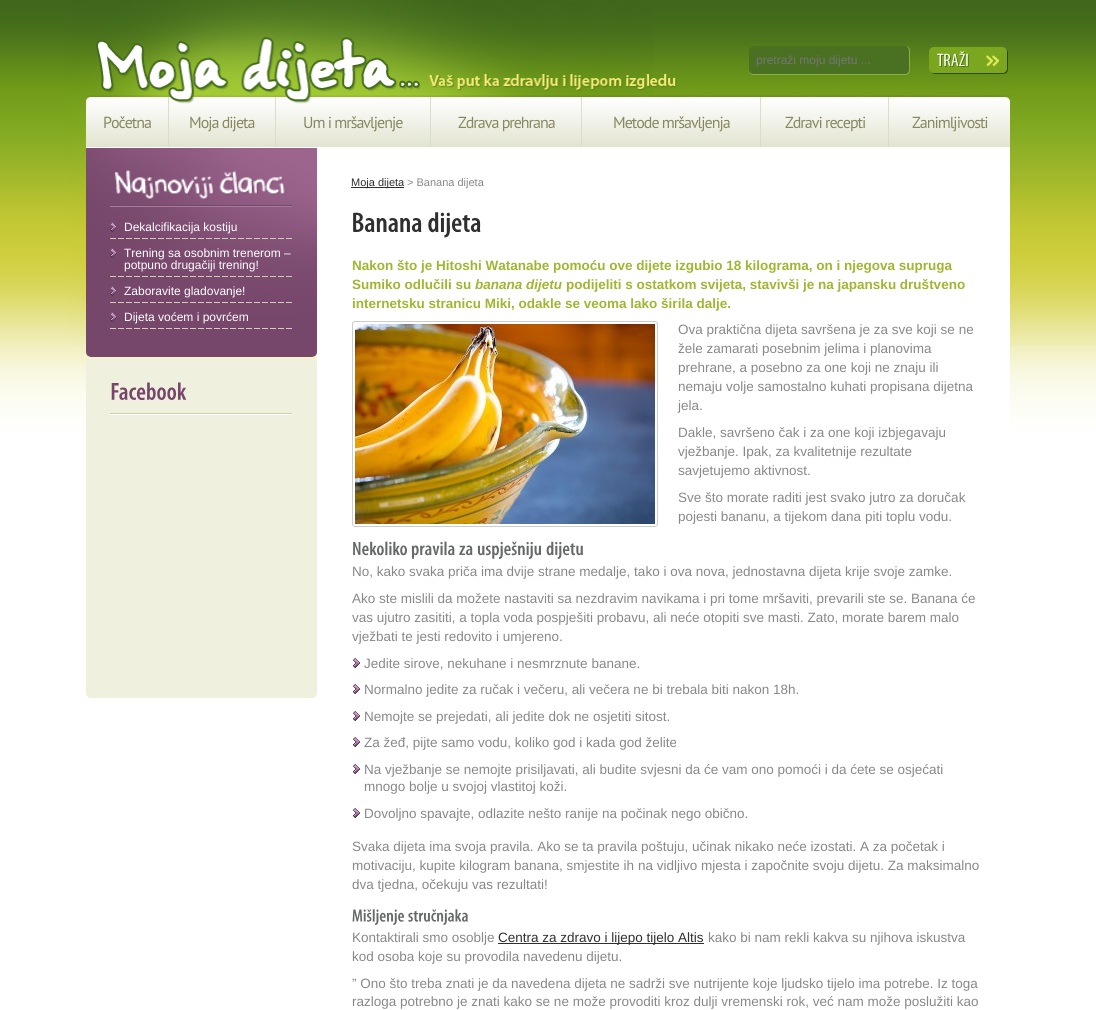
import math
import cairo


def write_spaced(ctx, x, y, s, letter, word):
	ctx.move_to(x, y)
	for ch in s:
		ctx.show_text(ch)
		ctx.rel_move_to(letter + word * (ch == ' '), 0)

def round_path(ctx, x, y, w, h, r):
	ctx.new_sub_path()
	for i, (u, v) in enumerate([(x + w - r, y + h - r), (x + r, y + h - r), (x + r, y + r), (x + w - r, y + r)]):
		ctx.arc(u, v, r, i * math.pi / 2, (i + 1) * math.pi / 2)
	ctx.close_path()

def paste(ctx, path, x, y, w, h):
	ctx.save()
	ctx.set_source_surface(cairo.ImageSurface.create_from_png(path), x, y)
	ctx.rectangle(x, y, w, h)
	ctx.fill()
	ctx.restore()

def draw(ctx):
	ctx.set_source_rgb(1, 1, 1)
	ctx.paint()
	paste(ctx, 'media/1.png', 0, 0, 1096, 430)
	paste(ctx, 'media/2.png', 68, 0, 585, 346)
	paste(ctx, 'media/5.png', 88, 95, 922, 3)
	gradient = cairo.LinearGradient(548, 97, 548, 147)
	gradient.add_color_stop_rgba(0, 1, 1, 1, 1)
	gradient.add_color_stop_rgba(1, 0.886, 0.894, 0.82, 1)
	ctx.set_source(gradient)
	ctx.new_path()
	ctx.move_to(91, 97)
	ctx.line_to(1005, 97)
	ctx.curve_to(1008, 97, 1010, 99, 1010, 102)
	ctx.line_to(1010, 147)
	ctx.line_to(86, 147)
	ctx.line_to(86, 102)
	ctx.curve_to(86, 99, 88, 97, 91, 97)
	ctx.close_path()
	ctx.fill()
	ctx.set_source_rgb(0.867, 0.867, 0.78)
	ctx.rectangle(168, 97, 1, 50)
	ctx.rectangle(275, 97, 1, 50)
	ctx.rectangle(430, 97, 1, 50)
	ctx.rectangle(581, 97, 1, 50)
	ctx.fill()
	paste(ctx, 'media/3.png', 96, 37, 581, 67)
	ctx.set_source_rgb(0.29, 0.443, 0.133)
	round_path(ctx, 749, 46, 161, 29, 5)
	ctx.fill()
	ctx.set_source_rgb(0.545, 0.682, 0.275)
	ctx.set_fill_rule(cairo.FILL_RULE_EVEN_ODD)
	ctx.new_path()
	ctx.move_to(754, 46)
	ctx.line_to(905, 46)
	ctx.curve_to(908, 46, 910, 48, 910, 51)
	ctx.line_to(910, 70)
	ctx.curve_to(910, 73, 908, 75, 905, 75)
	ctx.line_to(754, 75)
	ctx.curve_to(751, 75, 749, 73, 749, 70)
	ctx.line_to(749, 51)
	ctx.curve_to(749, 48, 751, 46, 754, 46)
	ctx.close_path()
	ctx.move_to(754, 46)
	ctx.line_to(905, 46)
	ctx.curve_to(907, 46, 909, 48, 909, 51)
	ctx.line_to(909, 70)
	ctx.curve_to(909, 72, 907, 74, 905, 74)
	ctx.line_to(754, 74)
	ctx.curve_to(751, 74, 749, 72, 749, 70)
	ctx.line_to(749, 51)
	ctx.curve_to(749, 48, 751, 46, 754, 46)
	ctx.close_path()
	ctx.fill()
	ctx.select_font_face('Liberation Sans')
	ctx.set_font_size(12)
	ctx.set_source_rgb(0.459, 0.459, 0.459)
	ctx.move_to(756, 64)
	ctx.show_text('pretraži moju dijetu ...')
	ctx.set_source_rgba(0, 0, 0, 0.5)
	ctx.set_fill_rule(cairo.FILL_RULE_WINDING)
	ctx.new_path()
	ctx.move_to(931, 72)
	ctx.curve_to(932, 73, 933, 74, 935, 74)
	ctx.line_to(1003, 74)
	ctx.curve_to(1006, 74, 1008, 72, 1008, 69)
	ctx.line_to(1008, 53)
	ctx.curve_to(1008, 51, 1007, 50, 1006, 49)
	ctx.curve_to(1007, 50, 1007, 51, 1007, 52)
	ctx.line_to(1007, 68)
	ctx.curve_to(1007, 71, 1005, 73, 1002, 73)
	ctx.line_to(934, 73)
	ctx.curve_to(933, 73, 932, 73, 931, 72)
	ctx.close_path()
	ctx.fill()
	ctx.set_source_rgb(0.482, 0.655, 0.125)
	round_path(ctx, 929, 47, 78, 26, 5)
	ctx.fill()
	paste(ctx, 'media/4.png', 937, 51, 62, 16)
	gradient = cairo.LinearGradient(548, 147, 548, 197)
	gradient.add_color_stop_rgba(0, 1, 1, 1, 1)
	gradient.add_color_stop_rgba(1, 0.886, 0.894, 0.82, 1)
	ctx.set_source(gradient)
	ctx.rectangle(86, 147, 924, 1)
	ctx.fill()
	ctx.select_font_face('PT Sans')
	ctx.set_font_size(16)
	ctx.set_source_rgb(0.533, 0.533, 0.373)
	for x, y, s in [
		(103, 128, 'Početna'),
		(189, 128, 'Moja dijeta'),
		(303, 128, 'Um i mršavljenje'),
		(458, 128, 'Zdrava prehrana'),
	]:
		write_spaced(ctx, x, y, s, -1, 0)
	ctx.set_source_rgb(0.867, 0.867, 0.78)
	ctx.rectangle(760, 97, 1, 50)
	ctx.fill()
	ctx.set_source_rgb(0.533, 0.533, 0.373)
	write_spaced(ctx, 613, 128, 'Metode mršavljenja', -1, 0)
	ctx.set_source_rgb(0.867, 0.867, 0.78)
	ctx.rectangle(888, 97, 1, 50)
	ctx.fill()
	ctx.set_source_rgb(0.533, 0.533, 0.373)
	write_spaced(ctx, 785, 128, 'Zdravi recepti', -1, 0)
	write_spaced(ctx, 912, 128, 'Zanimljivosti', -1, 0)
	paste(ctx, 'media/6.png', 86, 148, 231, 209)
	paste(ctx, 'media/7.png', 110, 205, 182, 2)
	paste(ctx, 'media/8.png', 114, 169, 172, 31)
	paste(ctx, 'media/9.png', 110, 238, 182, 1)
	paste(ctx, 'media/10.png', 110, 222, 7, 10)
	ctx.select_font_face('Liberation Sans')
	ctx.set_font_size(12)
	ctx.set_source_rgb(1, 1, 1)
	ctx.move_to(124, 231)
	ctx.show_text('Dekalcifikacija kostiju')
	paste(ctx, 'media/11.png', 110, 276, 182, 1)
	paste(ctx, 'media/12.png', 110, 248, 7, 10)
	ctx.move_to(124, 257)
	ctx.show_text('Trening sa osobnim trenerom –')
	ctx.move_to(124, 269)
	ctx.show_text('potpuno drugačiji trening!')
	paste(ctx, 'media/13.png', 110, 302, 182, 1)
	paste(ctx, 'media/12.png', 110, 286, 7, 10)
	ctx.move_to(124, 295)
	ctx.show_text('Zaboravite gladovanje!')
	paste(ctx, 'media/14.png', 110, 328, 182, 1)
	paste(ctx, 'media/12.png', 110, 312, 7, 10)
	ctx.move_to(124, 321)
	ctx.show_text('Dijeta voćem i povrćem')
	ctx.set_source_rgb(0.941, 0.941, 0.875)
	round_path(ctx, 86, 359, 231, 339, 5)
	ctx.fill()
	paste(ctx, 'media/15.png', 110, 413, 182, 2)
	paste(ctx, 'media/16.png', 111, 382, 76, 18)
	ctx.set_source_rgb(1, 1, 1)
	ctx.rectangle(317, 148, 693, 282)
	ctx.fill()
	ctx.set_source_rgb(0.184, 0.184, 0.184)
	ctx.rectangle(351, 187, 53, 1)
	ctx.fill()
	ctx.set_font_size(11)
	ctx.move_to(351, 186)
	ctx.show_text('Moja dijeta')
	ctx.set_source_rgb(0.533, 0.533, 0.533)
	ctx.move_to(407, 186)
	ctx.show_text('> Banana dijeta')
	paste(ctx, 'media/17.png', 353, 212, 69, 20)
	paste(ctx, 'media/18.png', 428, 212, 53, 26)
	ctx.select_font_face('Liberation Sans', cairo.FONT_SLANT_NORMAL, cairo.FONT_WEIGHT_BOLD)
	ctx.set_font_size(13.5)
	ctx.set_source_rgb(0.631, 0.71, 0.196)
	ctx.move_to(352, 270)
	ctx.show_text('Nakon što je Hitoshi Watanabe pomoću ove dijete izgubio 18 kilograma, on i njegova supruga')
	ctx.move_to(352, 289)
	ctx.show_text('Sumiko odlučili su')
	ctx.select_font_face('Liberation Sans', cairo.FONT_SLANT_ITALIC, cairo.FONT_WEIGHT_BOLD)
	ctx.move_to(475, 289)
	ctx.show_text('banana dijetu')
	ctx.select_font_face('Liberation Sans', cairo.FONT_SLANT_NORMAL, cairo.FONT_WEIGHT_BOLD)
	ctx.move_to(566, 289)
	ctx.show_text('podijeliti s ostatkom svijeta, stavivši je na japansku društveno')
	ctx.move_to(352, 308)
	ctx.show_text('internetsku stranicu Miki, odakle se veoma lako širila dalje.')
	round_path(ctx, 352.5, 321.5, 305, 205, 2.5)
	ctx.set_source_rgb(0.8, 0.8, 0.8)
	ctx.set_line_width(1)
	ctx.stroke()
	paste(ctx, 'media/19.png', 355, 324, 300, 200)
	ctx.select_font_face('Liberation Sans')
	ctx.set_source_rgb(0.533, 0.533, 0.533)
	for x, y, s in [
		(678, 334, 'Ova praktična dijeta savršena je za sve koji se ne'),
		(678, 353, 'žele zamarati posebnim jelima i planovima'),
		(678, 372, 'prehrane, a posebno za one koji ne znaju ili'),
		(678, 391, 'nemaju volje samostalno kuhati propisana dijetna'),
		(678, 410, 'jela.'),
		(678, 437, 'Dakle, savršeno čak i za one koji izbjegavaju'),
		(678, 456, 'vježbanje. Ipak, za kvalitetnije rezultate'),
		(678, 475, 'savjetujemo aktivnost.'),
		(678, 502, 'Sve što morate raditi jest svako jutro za doručak'),
		(678, 521, 'pojesti bananu, a tijekom dana piti toplu vodu.'),
	]:
		ctx.move_to(x, y)
		ctx.show_text(s)
	paste(ctx, 'media/20.png', 353, 541, 54, 15)
	paste(ctx, 'media/21.png', 411, 541, 44, 18)
	paste(ctx, 'media/22.png', 459, 545, 14, 11)
	paste(ctx, 'media/23.png', 477, 541, 65, 18)
	paste(ctx, 'media/24.png', 546, 541, 37, 18)
	for x, y, s in [
		(352, 576, 'No, kako svaka priča ima dvije strane medalje, tako i ova nova, jednostavna dijeta krije svoje zamke.'),
		(352, 603, 'Ako ste mislili da možete nastaviti sa nezdravim navikama i pri tome mršaviti, prevarili ste se. Banana će'),
		(352, 622, 'vas ujutro zasititi, a topla voda pospješiti probavu, ali neće otopiti sve masti. Zato, morate barem malo'),
		(352, 641, 'vježbati te jesti redovito i umjereno.'),
	]:
		ctx.move_to(x, y)
		ctx.show_text(s)
	paste(ctx, 'media/25.png', 353, 658, 7, 10)
	ctx.move_to(364, 668)
	ctx.show_text('Jedite sirove, nekuhane i nesmrznute banane.')
	paste(ctx, 'media/25.png', 353, 684, 7, 10)
	ctx.move_to(364, 694)
	ctx.show_text('Normalno jedite za ručak i večeru, ali večera ne bi trebala biti nakon 18h.')
	paste(ctx, 'media/25.png', 353, 711, 7, 10)
	ctx.move_to(364, 721)
	ctx.show_text('Nemojte se prejedati, ali jedite dok ne osjetiti sitost.')
	paste(ctx, 'media/25.png', 353, 737, 7, 10)
	ctx.move_to(364, 747)
	ctx.show_text('Za žeđ, pijte samo vodu, koliko god i kada god želite')
	paste(ctx, 'media/25.png', 353, 764, 7, 10)
	ctx.move_to(364, 774)
	ctx.show_text('Na vježbanje se nemojte prisiljavati, ali budite svjesni da će vam ono pomoći i da ćete se osjećati')
	ctx.move_to(364, 791)
	ctx.show_text('mnogo bolje u svojoj vlastitoj koži.')
	paste(ctx, 'media/25.png', 353, 808, 7, 10)
	for x, y, s in [
		(364, 818, 'Dovoljno spavajte, odlazite nešto ranije na počinak nego obično.'),
		(352, 851, 'Svaka dijeta ima svoja pravila. Ako se ta pravila poštuju, učinak nikako neće izostati. A za početak i'),
		(352, 870, 'motivaciju, kupite kilogram banana, smjestite ih na vidljivo mjesta i započnite svoju dijetu. Za maksimalno'),
		(352, 889, 'dva tjedna, očekuju vas rezultati!'),
	]:
		ctx.move_to(x, y)
		ctx.show_text(s)
	paste(ctx, 'media/26.png', 352, 909, 52, 16)
	paste(ctx, 'media/27.png', 408, 909, 60, 16)
	ctx.move_to(352, 942)
	ctx.show_text('Kontaktirali smo osoblje')
	ctx.set_source_rgb(0.184, 0.184, 0.184)
	ctx.rectangle(498, 943, 206, 1)
	ctx.fill()
	ctx.move_to(498, 942)
	ctx.show_text('Centra za zdravo i lijepo tijelo Altis')
	ctx.set_source_rgb(0.533, 0.533, 0.533)
	for x, y, s in [
		(708, 942, 'kako bi nam rekli kakva su njihova iskustva'),
		(352, 961, 'kod osoba koje su provodila navedenu dijetu.'),
		(352, 988, '” Ono što treba znati je da navedena dijeta ne sadrži sve nutrijente koje ljudsko tijelo ima potrebe. Iz toga'),
		(352, 1006, 'razloga potrebno je znati kako se ne može provoditi kroz dulji vremenski rok, već nam može poslužiti kao'),
	]:
		ctx.move_to(x, y)
		ctx.show_text(s)
	paste(ctx, 'media/28.png', 1010, 177, 86, 169)


surface = cairo.ImageSurface(cairo.FORMAT_RGB24, 1096, 1010)
ctx = cairo.Context(surface)
options = cairo.FontOptions()
options.set_hint_metrics(cairo.HINT_METRICS_OFF)
options.set_hint_style(cairo.HINT_STYLE_NONE)
ctx.set_font_options(options)
ctx.set_miter_limit(4)
draw(ctx)
surface.write_to_png('image.png')
